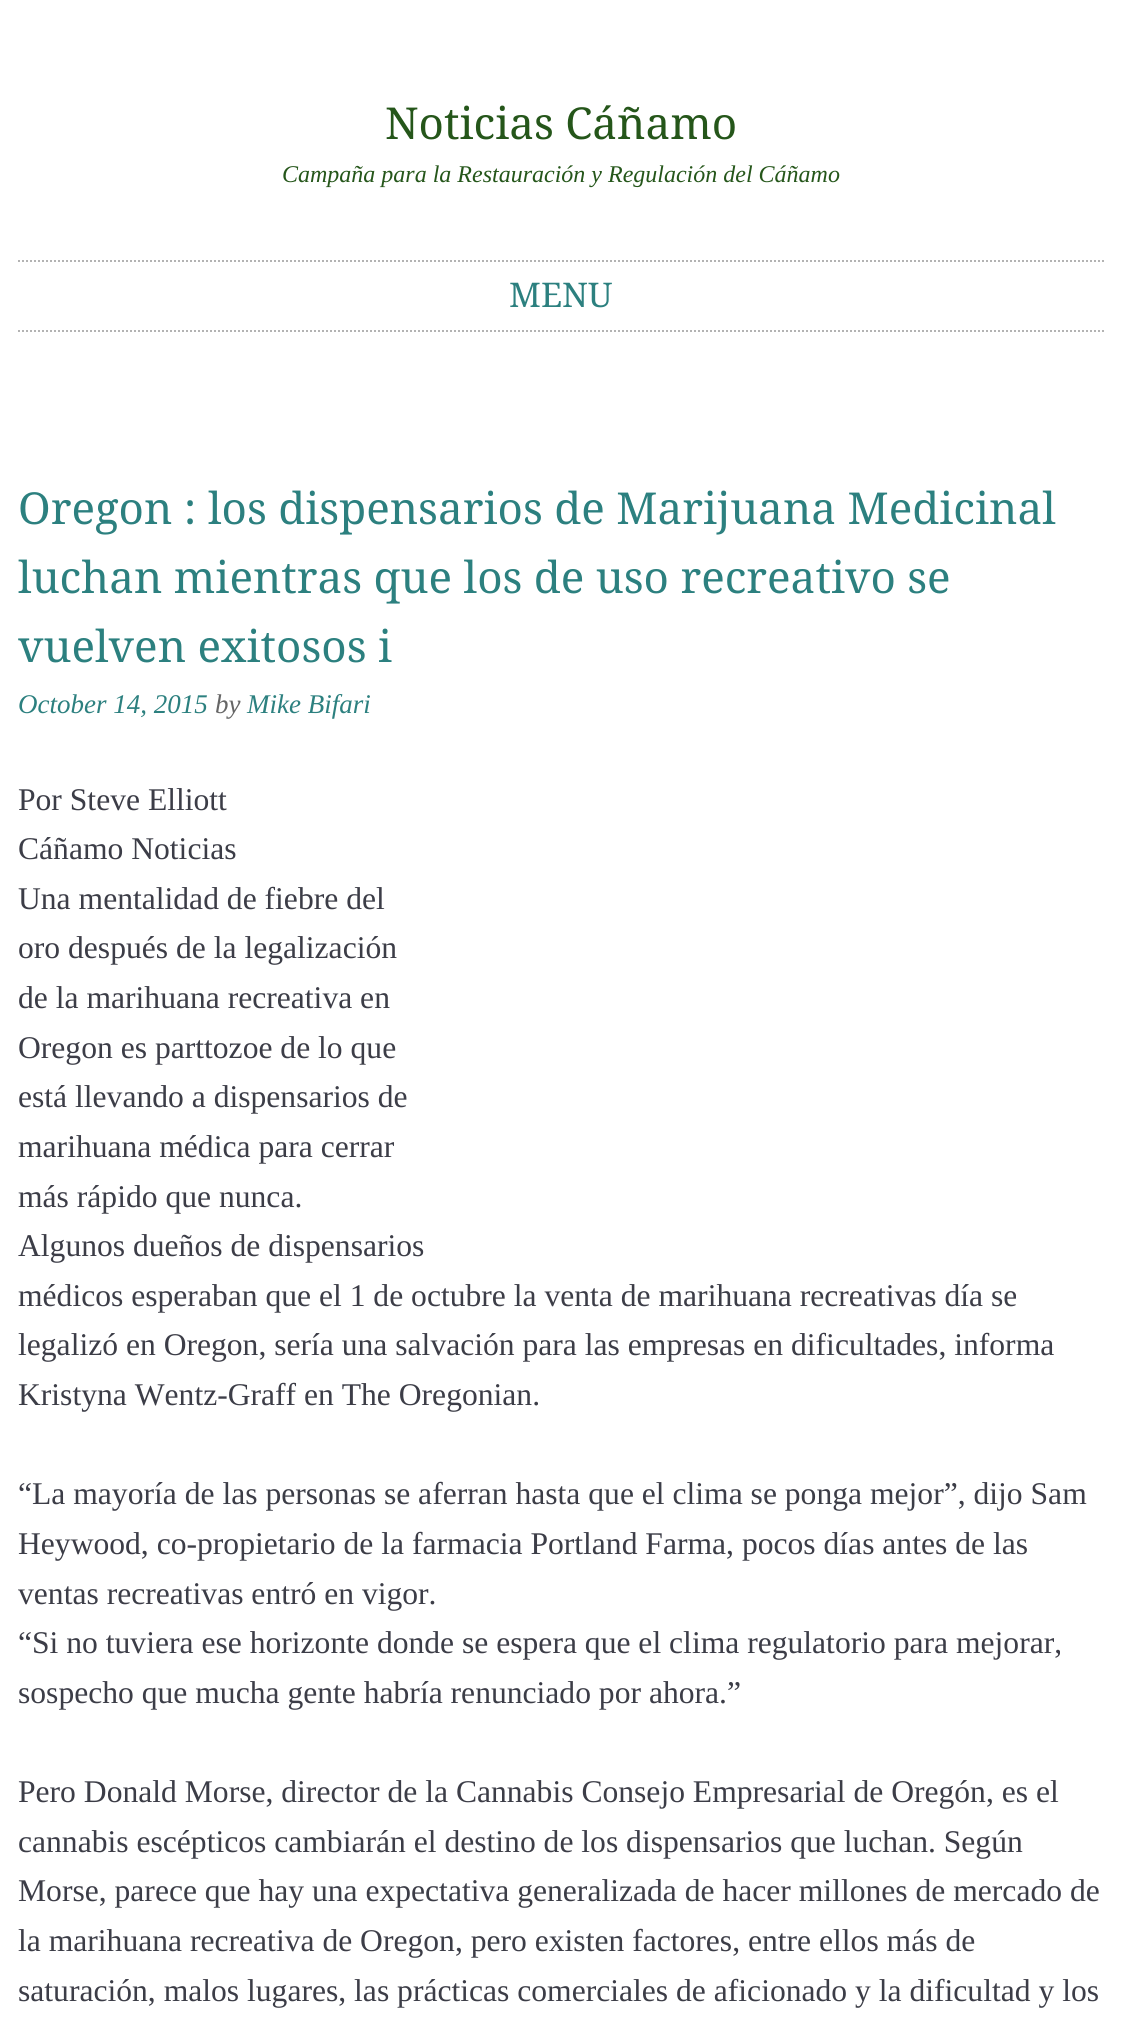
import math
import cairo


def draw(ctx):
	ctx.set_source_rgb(1, 1, 1)
	ctx.paint()
	ctx.select_font_face('Droid Serif')
	ctx.set_font_size(44)
	ctx.set_source_rgb(0.145, 0.337, 0.102)
	ctx.move_to(385, 139)
	ctx.show_text('Noticias Cáñamo')
	ctx.select_font_face('Liberation Serif', cairo.FONT_SLANT_ITALIC)
	ctx.set_font_size(24)
	ctx.move_to(282, 182)
	ctx.show_text('Campaña para la Restauración y Regulación del Cáñamo')
	ctx.new_path()
	ctx.move_to(18, 261)
	ctx.line_to(1104, 261)
	ctx.set_source_rgb(0.702, 0.702, 0.702)
	ctx.set_dash([2, 2])
	ctx.stroke()
	ctx.new_path()
	ctx.move_to(18, 331)
	ctx.line_to(1104, 331)
	ctx.stroke()
	ctx.select_font_face('Droid Serif')
	ctx.set_font_size(34)
	ctx.set_source_rgb(0.173, 0.502, 0.498)
	ctx.move_to(509, 307)
	ctx.show_text('MENU')
	ctx.set_font_size(44)
	for x, y, s in [
		(18, 524, 'Oregon : los dispensarios de Marijuana Medicinal'),
		(18, 593, 'luchan mientras que los de uso recreativo se'),
		(18, 662, 'vuelven exitosos i'),
	]:
		ctx.move_to(x, y)
		ctx.show_text(s)
	ctx.select_font_face('Liberation Serif', cairo.FONT_SLANT_ITALIC)
	ctx.set_font_size(27)
	ctx.move_to(18, 713)
	ctx.show_text('October 14, 2015')
	ctx.set_source_rgb(0.4, 0.4, 0.4)
	ctx.move_to(215, 713)
	ctx.show_text('by')
	ctx.set_source_rgb(0.173, 0.502, 0.498)
	ctx.move_to(247, 713)
	ctx.show_text('Mike Bifari')
	ctx.select_font_face('Liberation Serif')
	ctx.set_font_size(31.6)
	ctx.set_source_rgb(0.235, 0.239, 0.278)
	for x, y, s in [
		(18, 810, 'Por Steve Elliott'),
		(18, 859, 'Cáñamo Noticias'),
		(18, 909, 'Una mentalidad de fiebre del'),
		(18, 958, 'oro después de la legalización'),
		(18, 1008, 'de la marihuana recreativa en'),
		(18, 1058, 'Oregon es parttozoe de lo que'),
		(18, 1107, 'está llevando a dispensarios de'),
		(18, 1157, 'marihuana médica para cerrar'),
		(18, 1207, 'más rápido que nunca.'),
		(18, 1256, 'Algunos dueños de dispensarios'),
		(18, 1306, 'médicos esperaban que el 1 de octubre la venta de marihuana recreativas día se'),
		(18, 1355, 'legalizó en Oregon, sería una salvación para las empresas en dificultades, informa'),
		(18, 1405, 'Kristyna Wentz-Graff en The Oregonian.'),
		(18, 1504, '“La mayoría de las personas se aferran hasta que el clima se ponga mejor”, dijo Sam'),
		(18, 1554, 'Heywood, co-propietario de la farmacia Portland Farma, pocos días antes de las'),
		(18, 1604, 'ventas recreativas entró en vigor.'),
		(18, 1653, '“Si no tuviera ese horizonte donde se espera que el clima regulatorio para mejorar,'),
		(18, 1703, 'sospecho que mucha gente habría renunciado por ahora.”'),
		(18, 1802, 'Pero Donald Morse, director de la Cannabis Consejo Empresarial de Oregón, es el'),
		(18, 1852, 'cannabis escépticos cambiarán el destino de los dispensarios que luchan. Según'),
		(18, 1901, 'Morse, parece que hay una expectativa generalizada de hacer millones de mercado de'),
		(18, 1951, 'la marihuana recreativa de Oregon, pero existen factores, entre ellos más de'),
		(18, 2001, 'saturación, malos lugares, las prácticas comerciales de aficionado y la dificultad y los'),
	]:
		ctx.move_to(x, y)
		ctx.show_text(s)


surface = cairo.ImageSurface(cairo.FORMAT_RGB24, 1121, 2036)
ctx = cairo.Context(surface)
options = cairo.FontOptions()
options.set_hint_metrics(cairo.HINT_METRICS_OFF)
options.set_hint_style(cairo.HINT_STYLE_NONE)
ctx.set_font_options(options)
ctx.set_miter_limit(4)
draw(ctx)
surface.write_to_png('image.png')
